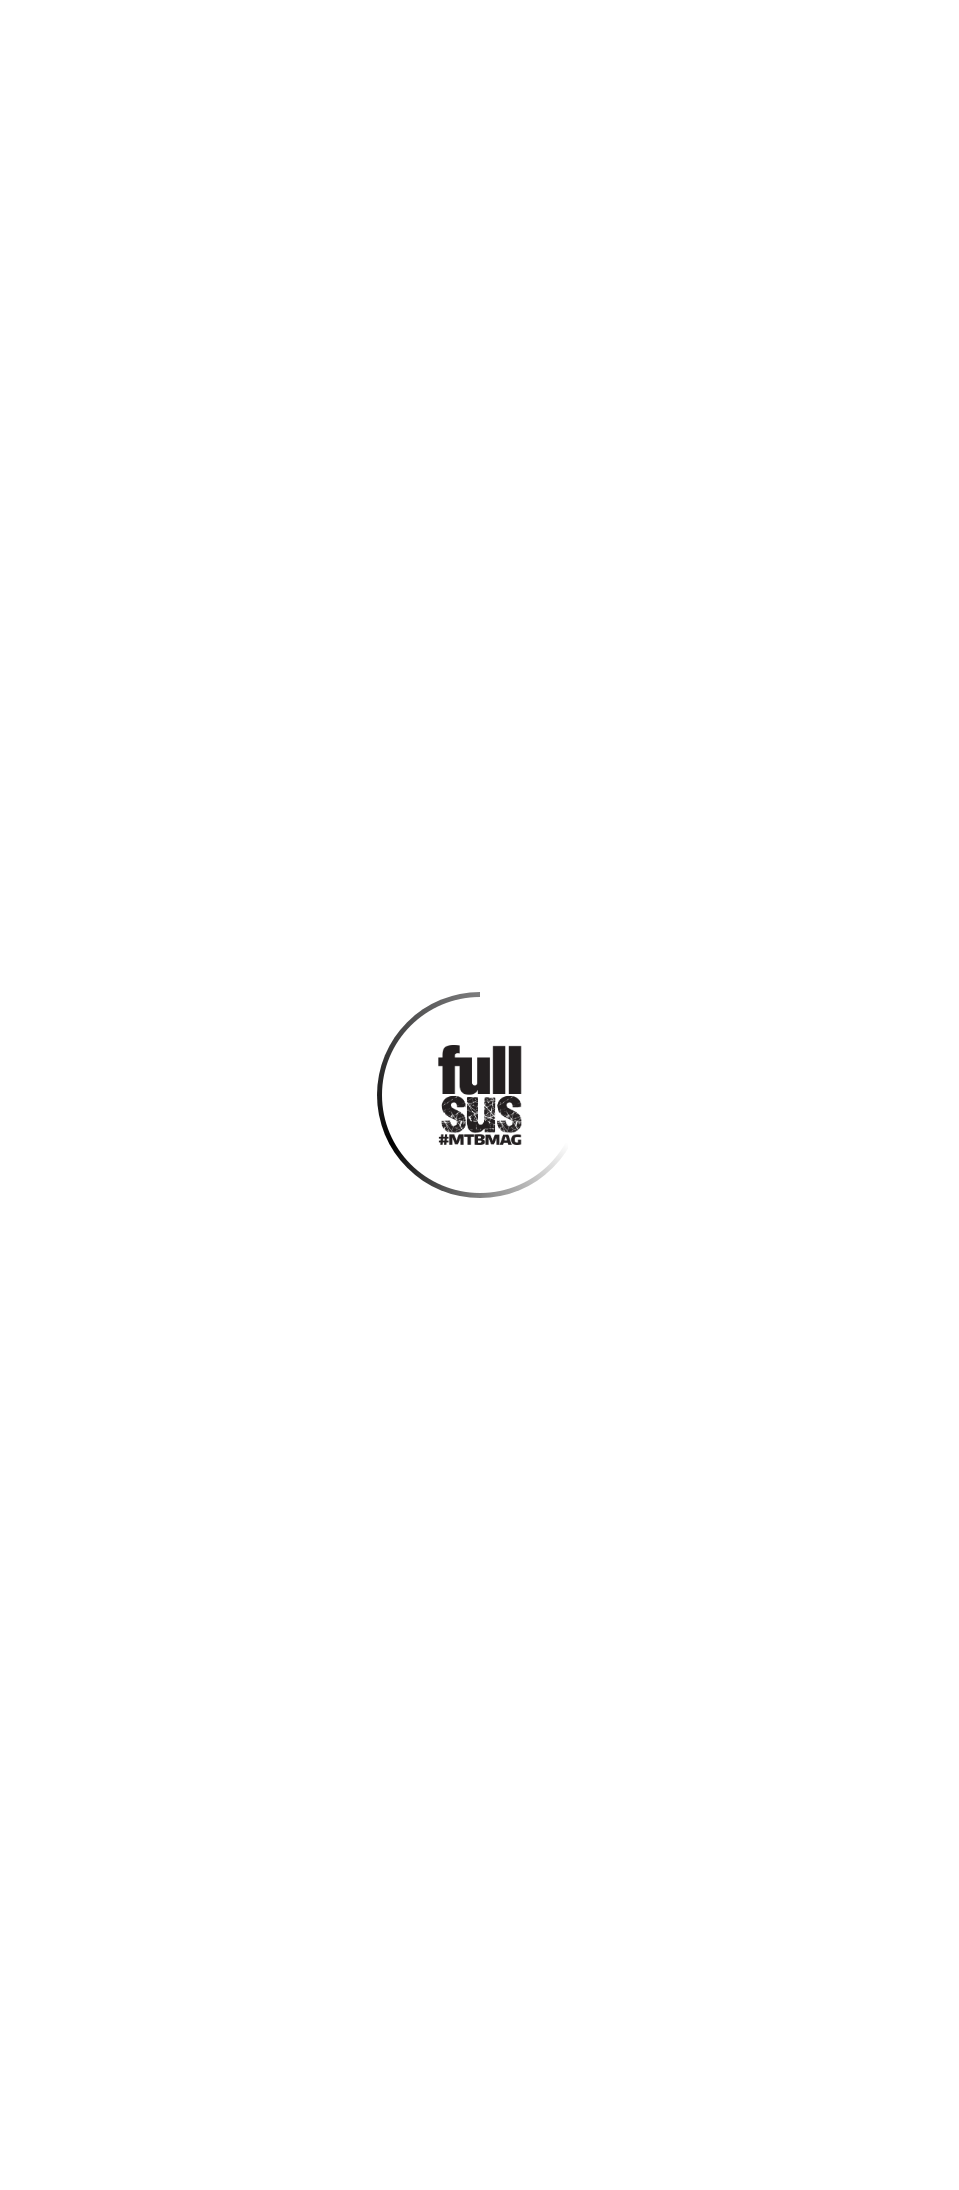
import math
import cairo


def paste(ctx, path, x, y, w, h):
	ctx.save()
	ctx.set_source_surface(cairo.ImageSurface.create_from_png(path), x, y)
	ctx.rectangle(x, y, w, h)
	ctx.fill()
	ctx.restore()

def draw(ctx):
	ctx.set_source_rgb(1, 1, 1)
	ctx.paint()
	paste(ctx, 'media/1.png', 377, 992, 191, 206)
	ctx.set_source_rgb(1, 1, 1)
	ctx.arc(480, 1095, 98, 0, 2 * math.pi)
	ctx.fill()
	paste(ctx, 'media/2.png', 438, 1045, 84, 100)


surface = cairo.ImageSurface(cairo.FORMAT_RGB24, 959, 2190)
ctx = cairo.Context(surface)
options = cairo.FontOptions()
options.set_hint_metrics(cairo.HINT_METRICS_OFF)
options.set_hint_style(cairo.HINT_STYLE_NONE)
ctx.set_font_options(options)
ctx.set_miter_limit(4)
draw(ctx)
surface.write_to_png('image.png')
